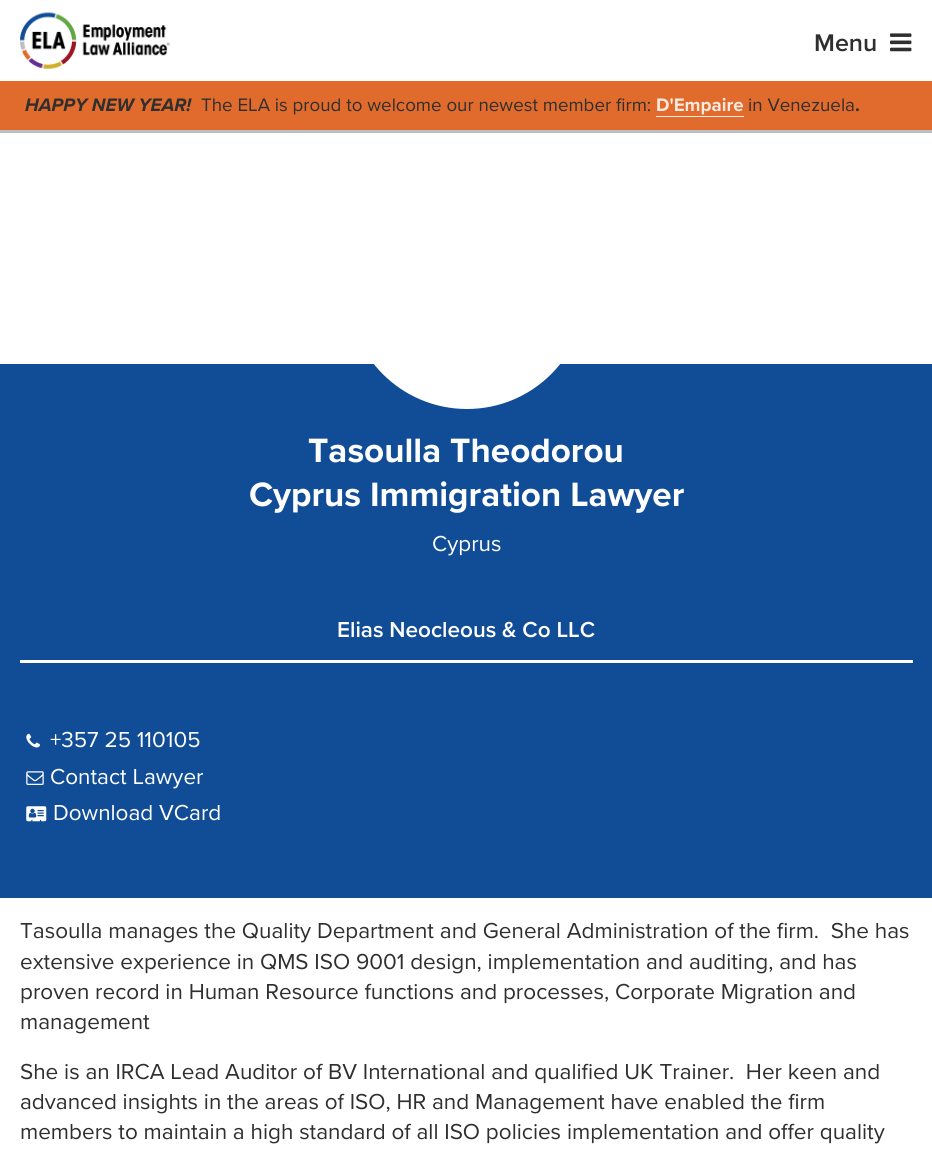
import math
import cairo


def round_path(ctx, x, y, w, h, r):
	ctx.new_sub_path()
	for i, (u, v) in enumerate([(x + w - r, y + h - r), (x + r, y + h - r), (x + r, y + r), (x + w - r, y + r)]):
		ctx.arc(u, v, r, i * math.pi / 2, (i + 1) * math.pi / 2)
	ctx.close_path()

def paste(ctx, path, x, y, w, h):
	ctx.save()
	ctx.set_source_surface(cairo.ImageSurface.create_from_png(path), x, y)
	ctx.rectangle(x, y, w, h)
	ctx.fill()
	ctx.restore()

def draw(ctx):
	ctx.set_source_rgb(1, 1, 1)
	ctx.paint()
	ctx.set_source_rgb(0.737, 0.745, 0.753)
	ctx.rectangle(0, 130, 932, 3)
	ctx.fill()
	paste(ctx, 'media/1.png', 20, 12, 150, 57)
	ctx.select_font_face('Proxima Nova SemiBold')
	ctx.set_font_size(25)
	ctx.set_source_rgb(0.184, 0.184, 0.184)
	ctx.move_to(814, 51)
	ctx.show_text('Menu')
	paste(ctx, 'media/2.png', 890, 33, 22, 19)
	ctx.set_source_rgb(0.878, 0.42, 0.173)
	ctx.rectangle(0, 81, 932, 49)
	ctx.fill()
	ctx.select_font_face('Proxima Nova', cairo.FONT_SLANT_ITALIC, cairo.FONT_WEIGHT_BOLD)
	ctx.set_font_size(18.75)
	ctx.set_source_rgb(0.184, 0.184, 0.184)
	ctx.move_to(25, 111)
	ctx.show_text('HAPPY NEW YEAR!')
	ctx.select_font_face('Proxima Nova')
	ctx.move_to(201, 111)
	ctx.show_text('The ELA is proud to welcome our newest member firm:')
	ctx.select_font_face('Proxima Nova', cairo.FONT_SLANT_NORMAL, cairo.FONT_WEIGHT_BOLD)
	ctx.set_source_rgb(0.98, 0.914, 0.875)
	ctx.move_to(656, 111)
	ctx.show_text('D\'Empaire')
	ctx.rectangle(656, 116, 88, 1)
	ctx.fill()
	ctx.select_font_face('Proxima Nova')
	ctx.set_source_rgb(0.184, 0.184, 0.184)
	ctx.move_to(748, 111)
	ctx.show_text('in Venezuela')
	ctx.select_font_face('Proxima Nova', cairo.FONT_SLANT_NORMAL, cairo.FONT_WEIGHT_BOLD)
	ctx.move_to(855, 111)
	ctx.show_text('.')
	ctx.set_source_rgb(0.067, 0.302, 0.592)
	ctx.rectangle(0, 364, 932, 534)
	ctx.fill()
	ctx.set_source_rgb(1, 1, 1)
	round_path(ctx, 350, 172, 234, 235, 117)
	ctx.fill_preserve()
	ctx.set_line_width(4)
	ctx.stroke()
	ctx.set_font_size(35)
	ctx.move_to(308, 462)
	ctx.show_text('Tasoulla Theodorou')
	ctx.move_to(249, 506)
	ctx.show_text('Cyprus Immigration Lawyer')
	ctx.select_font_face('Proxima Nova')
	ctx.set_font_size(22.5)
	ctx.move_to(432, 551)
	ctx.show_text('Cyprus')
	ctx.select_font_face('Proxima Nova SemiBold')
	ctx.move_to(337, 637)
	ctx.show_text('Elias Neocleous & Co LLC')
	ctx.rectangle(20, 660, 893, 3)
	ctx.fill()
	paste(ctx, 'media/3.png', 26, 733, 14, 15)
	ctx.select_font_face('Proxima Nova')
	ctx.move_to(50, 747)
	ctx.show_text('+357 25 110105')
	paste(ctx, 'media/4.png', 26, 771, 18, 14)
	ctx.move_to(50, 784)
	ctx.show_text('Contact Lawyer')
	paste(ctx, 'media/5.png', 26, 806, 21, 16)
	ctx.move_to(53, 820)
	ctx.show_text('Download VCard')
	ctx.set_source_rgb(0.184, 0.184, 0.184)
	for x, y, s in [
		(20, 938, 'Tasoulla manages the Quality Department and General Administration of the firm.  She has'),
		(20, 969, 'extensive experience in QMS ISO 9001 design, implementation and auditing, and has'),
		(20, 999, 'proven record in Human Resource functions and processes, Corporate Migration and'),
		(20, 1029, 'management'),
		(20, 1079, 'She is an IRCA Lead Auditor of BV International and qualified UK Trainer.  Her keen and'),
		(20, 1109, 'advanced insights in the areas of ISO, HR and Management have enabled the firm'),
		(20, 1139, 'members to maintain a high standard of all ISO policies implementation and offer quality'),
	]:
		ctx.move_to(x, y)
		ctx.show_text(s)


surface = cairo.ImageSurface(cairo.FORMAT_RGB24, 932, 1158)
ctx = cairo.Context(surface)
options = cairo.FontOptions()
options.set_hint_metrics(cairo.HINT_METRICS_OFF)
options.set_hint_style(cairo.HINT_STYLE_NONE)
ctx.set_font_options(options)
ctx.set_miter_limit(4)
draw(ctx)
surface.write_to_png('image.png')
